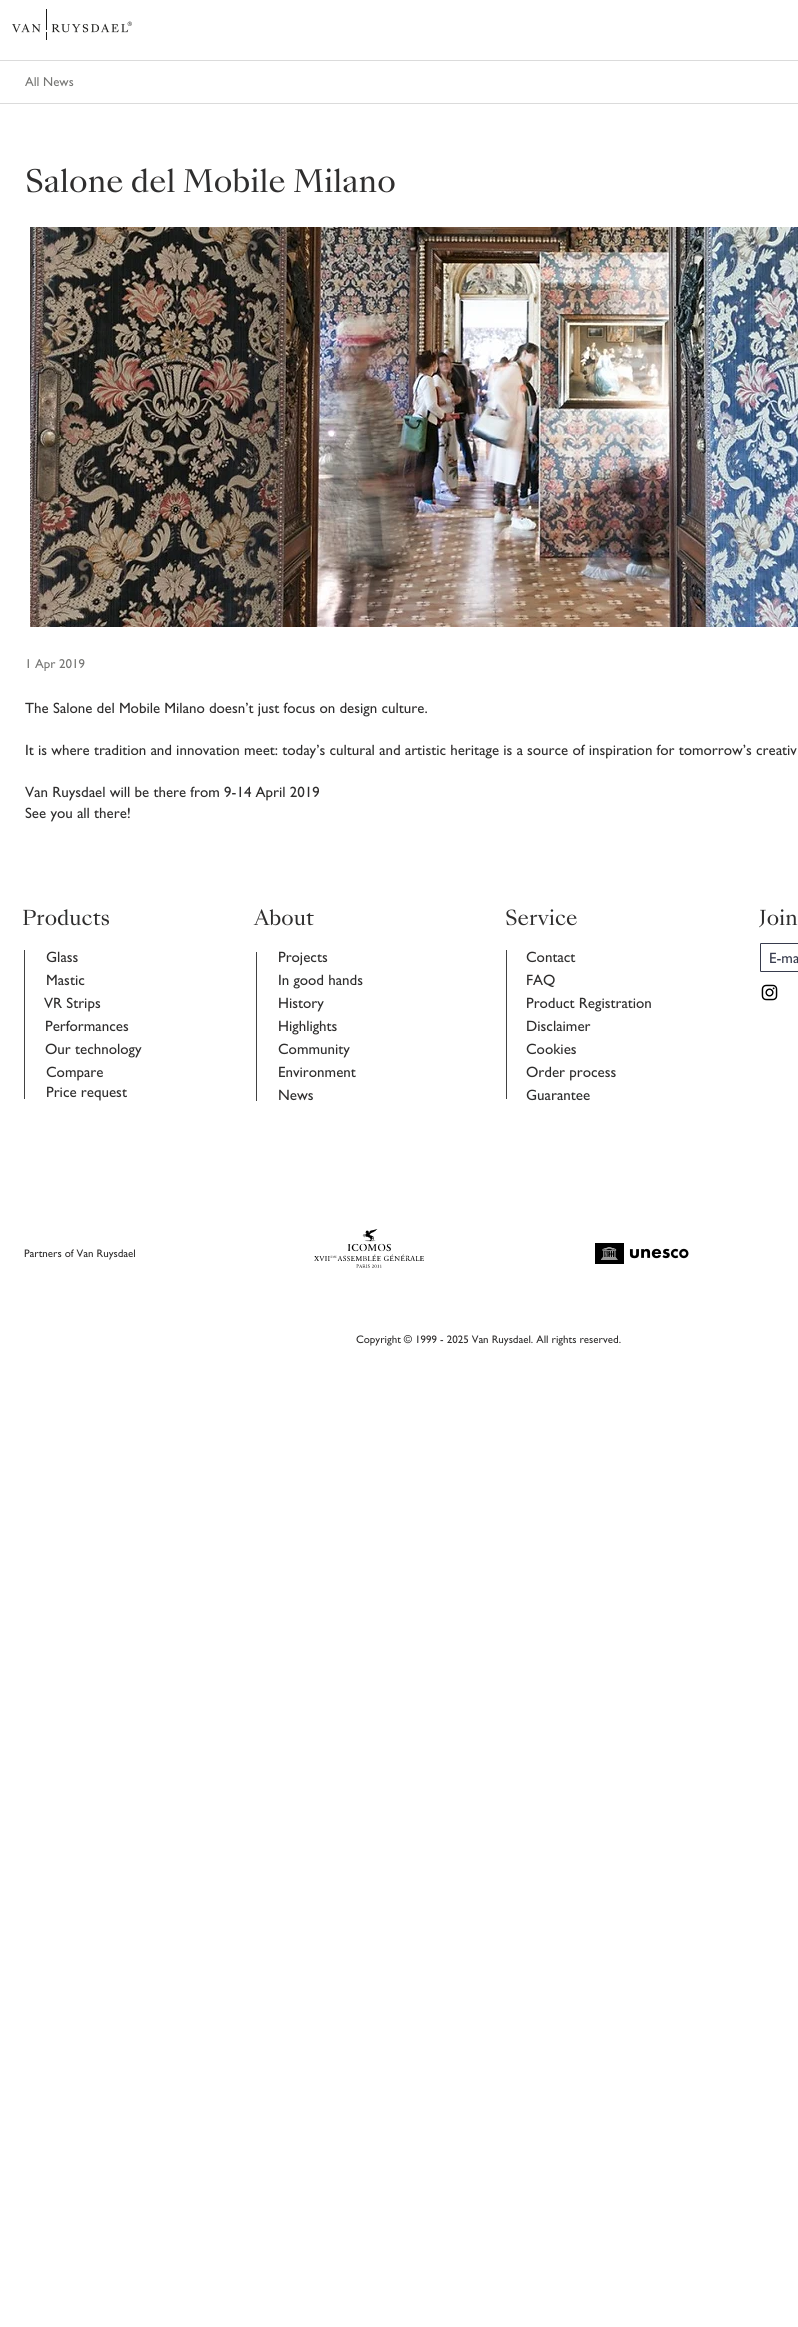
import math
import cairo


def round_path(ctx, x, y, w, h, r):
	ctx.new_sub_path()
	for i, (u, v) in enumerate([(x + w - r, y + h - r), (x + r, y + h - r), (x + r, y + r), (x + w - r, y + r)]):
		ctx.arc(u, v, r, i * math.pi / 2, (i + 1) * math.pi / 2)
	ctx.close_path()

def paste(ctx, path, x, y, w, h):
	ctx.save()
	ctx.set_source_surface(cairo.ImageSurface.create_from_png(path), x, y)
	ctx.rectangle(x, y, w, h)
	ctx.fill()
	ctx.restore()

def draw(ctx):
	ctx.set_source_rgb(1, 1, 1)
	ctx.paint()
	paste(ctx, 'media/1.png', 12, 9, 120, 31)
	ctx.set_source_rgb(0.859, 0.859, 0.859)
	ctx.rectangle(0, 60, 798, 1)
	ctx.fill()
	ctx.select_font_face('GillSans')
	ctx.set_font_size(13)
	ctx.set_source_rgb(0.463, 0.463, 0.455)
	ctx.move_to(25, 86)
	ctx.show_text('All News')
	ctx.set_source_rgb(0.859, 0.859, 0.859)
	ctx.rectangle(0, 103, 798, 1)
	ctx.fill()
	ctx.select_font_face('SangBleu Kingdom')
	ctx.set_font_size(30)
	ctx.set_source_rgb(0.184, 0.18, 0.18)
	ctx.move_to(25, 192)
	ctx.show_text('Salone del Mobile Milano')
	paste(ctx, 'media/2.png', 30, 227, 768, 400)
	ctx.select_font_face('GillSans')
	ctx.set_font_size(13)
	ctx.set_source_rgb(0.463, 0.463, 0.455)
	ctx.move_to(25, 668)
	ctx.show_text('1 Apr 2019')
	ctx.set_font_size(15)
	ctx.set_source_rgb(0.184, 0.18, 0.18)
	for x, y, s in [
		(25, 713, 'The Salone del Mobile Milano doesn’t just focus on design culture.'),
		(25, 755, 'It is where tradition and innovation meet: today’s cultural and artistic heritage is a source of inspiration for tomorrow’s creativ'),
		(25, 797, 'Van Ruysdael will be there from 9-14 April 2019'),
		(25, 818, 'See you all there!'),
	]:
		ctx.move_to(x, y)
		ctx.show_text(s)
	ctx.select_font_face('SangBleu Kingdom')
	ctx.set_font_size(20)
	ctx.move_to(22, 925)
	ctx.show_text('Products')
	ctx.set_source_rgb(0.259, 0.259, 0.259)
	ctx.rectangle(24, 950, 1, 149)
	ctx.fill()
	ctx.select_font_face('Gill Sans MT')
	ctx.set_font_size(15)
	ctx.set_source_rgb(0.184, 0.18, 0.18)
	for x, y, s in [
		(46, 962, 'Glass'),
		(46, 985, 'Mastic'),
		(45, 1031, 'Performances'),
		(45, 1054, 'Our technology'),
		(46, 1077, 'Compare'),
	]:
		ctx.move_to(x, y)
		ctx.show_text(s)
	ctx.select_font_face('SangBleu Kingdom')
	ctx.set_font_size(20)
	ctx.move_to(254, 925)
	ctx.show_text('About')
	ctx.set_source_rgb(0.259, 0.259, 0.259)
	ctx.rectangle(256, 952, 1, 149)
	ctx.fill()
	ctx.select_font_face('Gill Sans MT')
	ctx.set_font_size(15)
	ctx.set_source_rgb(0.184, 0.18, 0.18)
	for x, y, s in [
		(278, 962, 'Projects'),
		(278, 985, 'In good hands'),
		(278, 1008, 'History'),
		(278, 1031, 'Highlights'),
		(278, 1054, 'Community'),
		(278, 1077, 'Environment'),
		(278, 1100, 'News'),
	]:
		ctx.move_to(x, y)
		ctx.show_text(s)
	ctx.select_font_face('SangBleu Kingdom')
	ctx.set_font_size(20)
	ctx.move_to(505, 925)
	ctx.show_text('Service')
	ctx.set_source_rgb(0.259, 0.259, 0.259)
	ctx.rectangle(506, 950, 1, 149)
	ctx.fill()
	ctx.select_font_face('Gill Sans MT')
	ctx.set_font_size(15)
	ctx.set_source_rgb(0.184, 0.18, 0.18)
	for x, y, s in [
		(526, 962, 'Contact'),
		(526, 985, 'FAQ'),
		(526, 1008, 'Product Registration'),
		(526, 1031, 'Disclaimer'),
		(526, 1054, 'Cookies'),
		(526, 1077, 'Order process'),
	]:
		ctx.move_to(x, y)
		ctx.show_text(s)
	ctx.select_font_face('SangBleu Kingdom')
	ctx.set_font_size(20)
	ctx.move_to(759, 925)
	ctx.show_text('Join')
	round_path(ctx, 760.5, 943.5, 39, 28, 0.5)
	ctx.set_source_rgb(0.216, 0.231, 0.302)
	ctx.set_line_width(1)
	ctx.stroke()
	ctx.select_font_face('Gill Sans MT')
	ctx.set_font_size(15)
	ctx.move_to(769, 963)
	ctx.show_text('E-ma')
	paste(ctx, 'media/3.png', 761, 984, 17, 17)
	ctx.set_source_rgb(0.184, 0.18, 0.18)
	ctx.move_to(46, 1097)
	ctx.show_text('Price request')
	ctx.select_font_face('GillSans')
	ctx.set_font_size(11)
	ctx.move_to(24, 1257)
	ctx.show_text('Partners of Van Ruysdael')
	paste(ctx, 'media/4.png', 314, 1229, 110, 39)
	paste(ctx, 'media/5.png', 595, 1243, 94, 21)
	ctx.move_to(356, 1343)
	ctx.show_text('Copyright © 1999 - 2025 Van Ruysdael. All rights reserved.')
	ctx.select_font_face('Gill Sans MT')
	ctx.set_font_size(15)
	ctx.move_to(44, 1008)
	ctx.show_text('VR Strips')
	ctx.move_to(526, 1100)
	ctx.show_text('Guarantee')


surface = cairo.ImageSurface(cairo.FORMAT_RGB24, 798, 2327)
ctx = cairo.Context(surface)
options = cairo.FontOptions()
options.set_hint_metrics(cairo.HINT_METRICS_OFF)
options.set_hint_style(cairo.HINT_STYLE_NONE)
ctx.set_font_options(options)
ctx.set_miter_limit(4)
draw(ctx)
surface.write_to_png('image.png')
